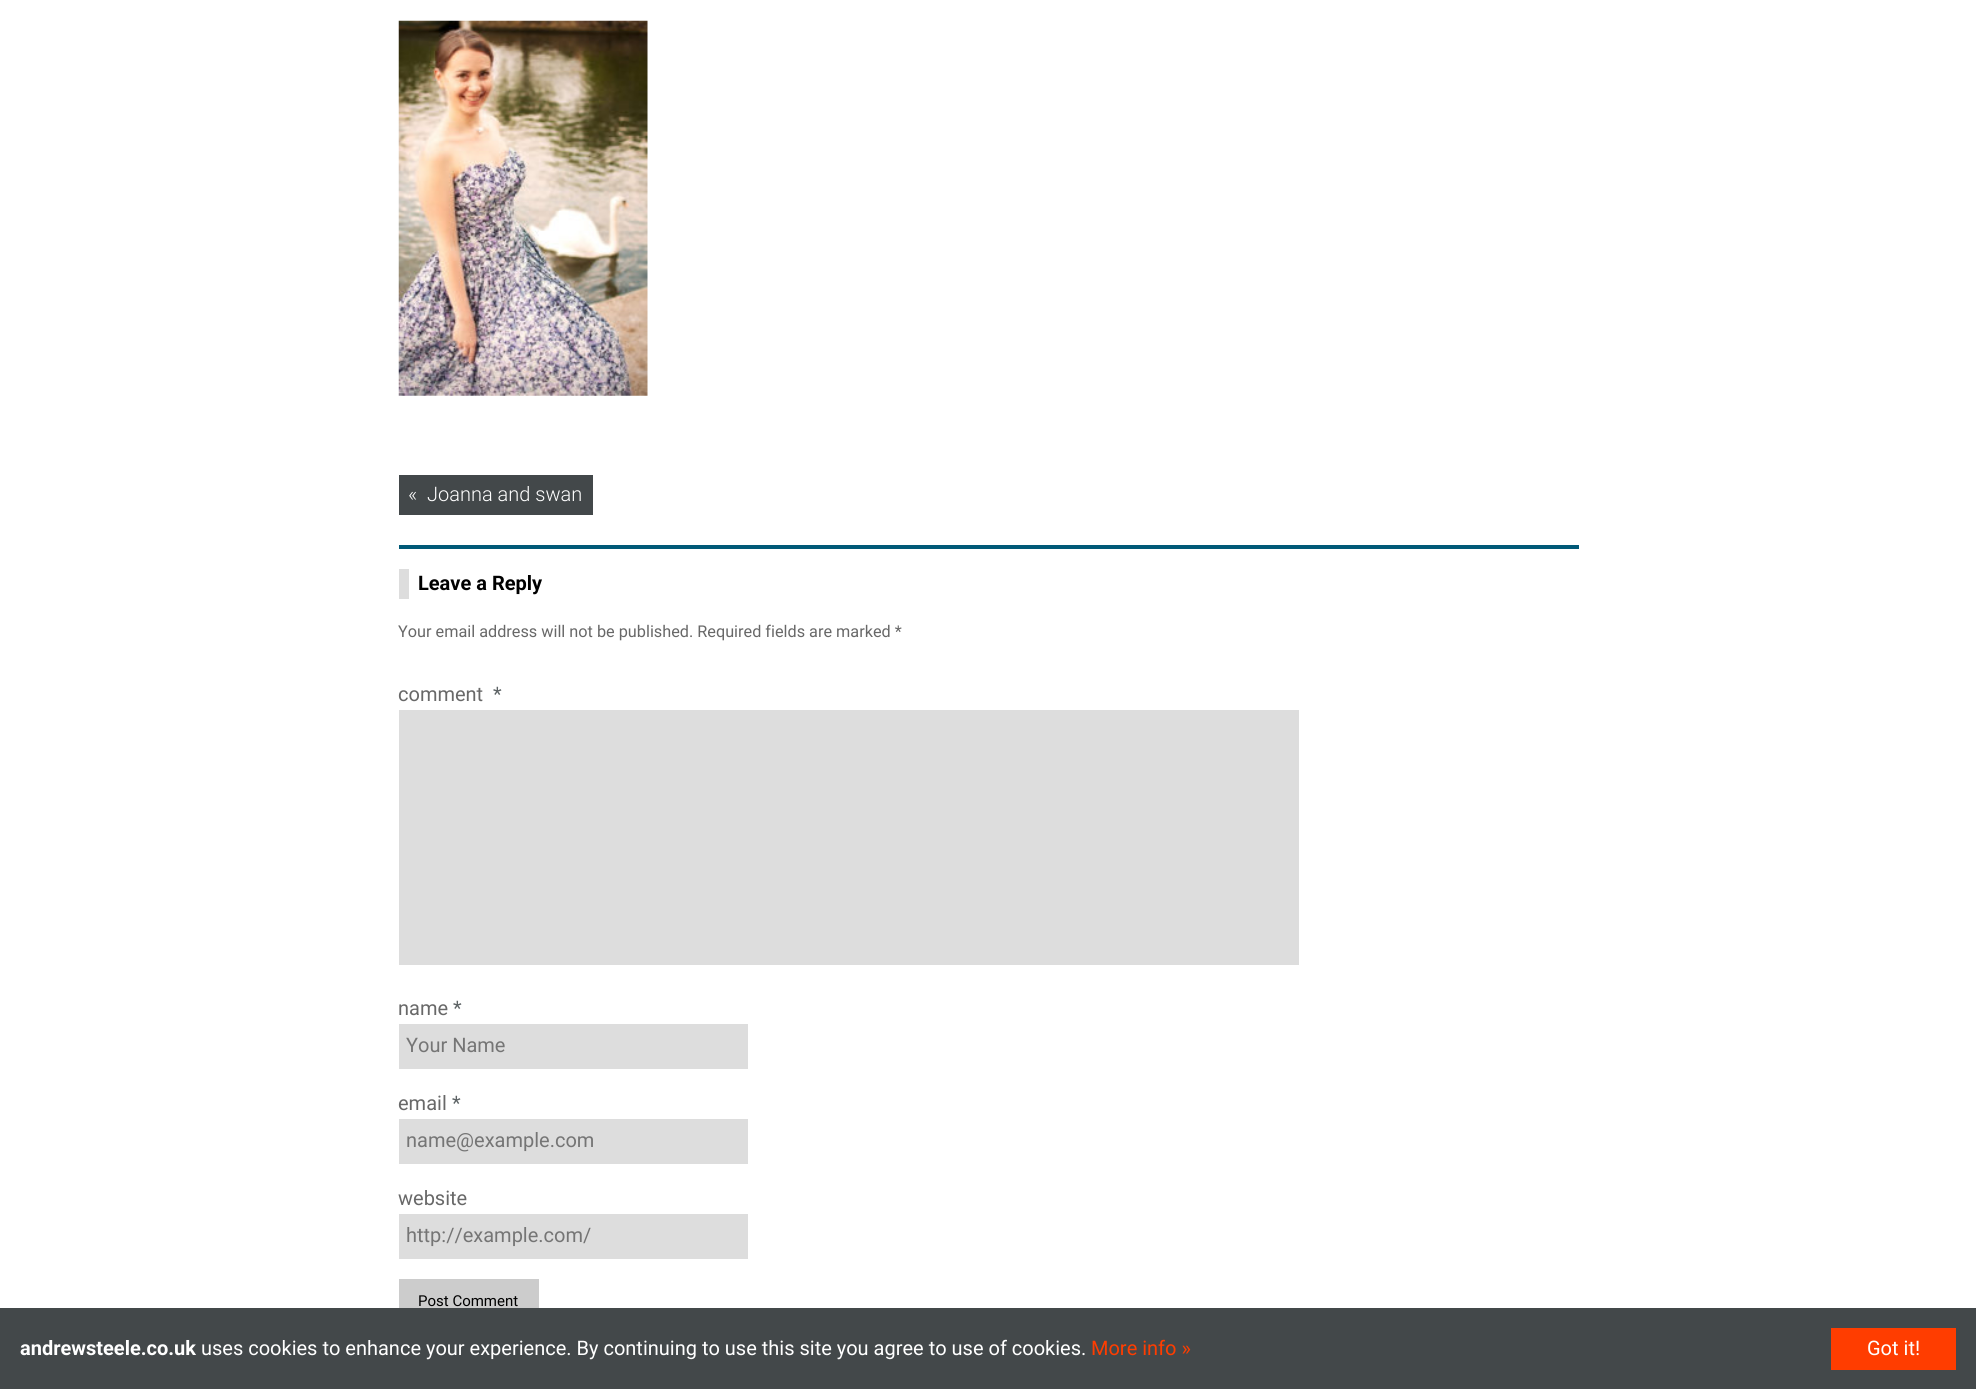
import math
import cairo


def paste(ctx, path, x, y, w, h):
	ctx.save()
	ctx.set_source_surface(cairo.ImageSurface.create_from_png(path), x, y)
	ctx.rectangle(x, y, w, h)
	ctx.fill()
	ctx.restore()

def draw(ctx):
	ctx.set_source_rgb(1, 1, 1)
	ctx.paint()
	paste(ctx, 'media/1.png', 398, 20, 250, 376)
	ctx.set_source_rgb(0.263, 0.282, 0.29)
	ctx.rectangle(399, 475, 194, 40)
	ctx.fill()
	ctx.select_font_face('Roboto Light')
	ctx.set_font_size(20)
	ctx.set_source_rgb(1, 1, 1)
	ctx.move_to(408, 501)
	ctx.show_text('«')
	ctx.move_to(427, 501)
	ctx.show_text('Joanna and swan')
	ctx.set_source_rgb(0, 0.349, 0.467)
	ctx.rectangle(399, 545, 1180, 4)
	ctx.fill()
	ctx.set_source_rgb(0.867, 0.867, 0.867)
	ctx.rectangle(399, 569, 10, 30)
	ctx.fill()
	ctx.select_font_face('Roboto', cairo.FONT_SLANT_NORMAL, cairo.FONT_WEIGHT_BOLD)
	ctx.set_source_rgb(0, 0, 0)
	ctx.move_to(418, 590)
	ctx.show_text('Leave a Reply')
	ctx.select_font_face('Roboto')
	ctx.set_font_size(16.25)
	ctx.set_source_rgb(0.408, 0.408, 0.408)
	ctx.move_to(398, 637)
	ctx.show_text('Your email address will not be published. Required fields are marked *')
	ctx.set_font_size(20)
	ctx.move_to(398, 701)
	ctx.show_text('comment')
	ctx.set_source_rgb(0.365, 0.388, 0.396)
	ctx.move_to(493, 701)
	ctx.show_text('*')
	ctx.set_source_rgb(0.867, 0.867, 0.867)
	ctx.rectangle(399, 710, 900, 255)
	ctx.fill()
	ctx.set_source_rgb(0.408, 0.408, 0.408)
	ctx.move_to(398, 1015)
	ctx.show_text('name')
	ctx.set_source_rgb(0.365, 0.388, 0.396)
	ctx.move_to(453, 1015)
	ctx.show_text('*')
	ctx.set_source_rgb(0.867, 0.867, 0.867)
	ctx.rectangle(399, 1024, 349, 45)
	ctx.fill()
	ctx.set_source_rgb(0.459, 0.459, 0.459)
	ctx.move_to(406, 1052)
	ctx.show_text('Your Name')
	ctx.set_source_rgb(0.408, 0.408, 0.408)
	ctx.move_to(398, 1110)
	ctx.show_text('email')
	ctx.set_source_rgb(0.365, 0.388, 0.396)
	ctx.move_to(452, 1110)
	ctx.show_text('*')
	ctx.set_source_rgb(0.867, 0.867, 0.867)
	ctx.rectangle(399, 1119, 349, 45)
	ctx.fill()
	ctx.set_source_rgb(0.459, 0.459, 0.459)
	ctx.move_to(406, 1147)
	ctx.show_text('name@example.com')
	ctx.set_source_rgb(0.408, 0.408, 0.408)
	ctx.move_to(398, 1205)
	ctx.show_text('website')
	ctx.set_source_rgb(0.867, 0.867, 0.867)
	ctx.rectangle(399, 1214, 349, 45)
	ctx.fill()
	ctx.set_source_rgb(0.459, 0.459, 0.459)
	ctx.move_to(406, 1242)
	ctx.show_text('http://example.com/')
	ctx.set_source_rgb(0.8, 0.8, 0.8)
	ctx.rectangle(399, 1279, 140, 29)
	ctx.fill()
	ctx.set_font_size(15)
	ctx.set_source_rgb(0, 0, 0)
	ctx.move_to(418, 1306)
	ctx.show_text('Post Comment')
	ctx.set_source_rgb(0.263, 0.282, 0.29)
	ctx.rectangle(0, 1308, 1976, 81)
	ctx.fill()
	ctx.select_font_face('Roboto', cairo.FONT_SLANT_NORMAL, cairo.FONT_WEIGHT_BOLD)
	ctx.set_font_size(20)
	ctx.set_source_rgb(1, 1, 1)
	ctx.move_to(20, 1355)
	ctx.show_text('andrewsteele.co.uk')
	ctx.select_font_face('Roboto')
	ctx.move_to(201, 1355)
	ctx.show_text('uses cookies to enhance your experience. By continuing to use this site you agree to use of cookies.')
	ctx.set_source_rgb(1, 0.239, 0)
	ctx.move_to(1091, 1355)
	ctx.show_text('More info »')
	ctx.rectangle(1831, 1328, 125, 42)
	ctx.fill()
	ctx.set_source_rgb(1, 1, 1)
	ctx.move_to(1867, 1355)
	ctx.show_text('Got it!')


surface = cairo.ImageSurface(cairo.FORMAT_RGB24, 1976, 1389)
ctx = cairo.Context(surface)
options = cairo.FontOptions()
options.set_hint_metrics(cairo.HINT_METRICS_OFF)
options.set_hint_style(cairo.HINT_STYLE_NONE)
ctx.set_font_options(options)
ctx.set_miter_limit(4)
draw(ctx)
surface.write_to_png('image.png')
